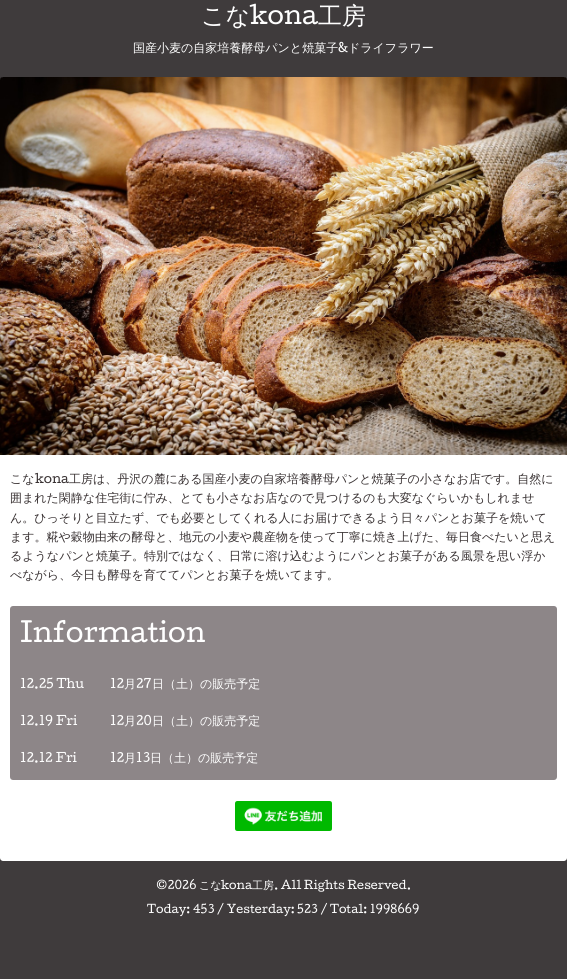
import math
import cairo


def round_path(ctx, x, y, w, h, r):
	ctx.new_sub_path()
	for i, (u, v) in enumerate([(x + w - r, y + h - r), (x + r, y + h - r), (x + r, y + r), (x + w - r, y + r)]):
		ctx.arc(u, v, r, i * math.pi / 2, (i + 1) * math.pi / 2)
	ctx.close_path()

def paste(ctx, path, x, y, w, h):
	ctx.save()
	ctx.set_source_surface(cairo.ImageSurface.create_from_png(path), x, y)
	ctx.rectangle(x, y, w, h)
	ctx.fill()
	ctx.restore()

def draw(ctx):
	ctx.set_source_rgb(0.247, 0.231, 0.235)
	ctx.paint()
	ctx.select_font_face('WenQuanYi Zen Hei Medium')
	ctx.set_font_size(24)
	ctx.set_source_rgb(1, 1, 1)
	ctx.move_to(201, 24)
	ctx.show_text('こな')
	ctx.select_font_face('Cutive')
	ctx.move_to(250, 24)
	ctx.show_text('kona')
	ctx.select_font_face('WenQuanYi Zen Hei Medium')
	ctx.move_to(318, 24)
	ctx.show_text('工房')
	ctx.set_font_size(12)
	ctx.move_to(133, 52)
	ctx.show_text('国産小麦の自家培養酵母パンと焼菓子')
	ctx.select_font_face('Cutive')
	ctx.move_to(338, 52)
	ctx.show_text('&')
	ctx.select_font_face('WenQuanYi Zen Hei Medium')
	ctx.move_to(348, 52)
	ctx.show_text('ドライフラワー')
	ctx.new_path()
	ctx.move_to(4, 77)
	ctx.line_to(563, 77)
	ctx.curve_to(565, 77, 567, 79, 567, 81)
	ctx.line_to(567, 790)
	ctx.line_to(0, 790)
	ctx.line_to(0, 81)
	ctx.curve_to(0, 79, 2, 77, 4, 77)
	ctx.close_path()
	ctx.fill()
	paste(ctx, 'media/1.png', 0, 77, 567, 378)
	ctx.set_source_rgb(0.22, 0.192, 0.196)
	ctx.move_to(10, 483)
	ctx.show_text('こな')
	ctx.select_font_face('Cutive')
	ctx.move_to(35, 483)
	ctx.show_text('kona')
	ctx.select_font_face('WenQuanYi Zen Hei Medium')
	for x, y, s in [
		(69, 483, '工房は、丹沢の麓にある国産小麦の自家培養酵母パンと焼菓子の小さなお店です。自然に'),
		(10, 502, '囲まれた閑静な住宅街に佇み、とても小さなお店なので見つけるのも大変なぐらいかもしれませ'),
		(10, 522, 'ん。ひっそりと目立たず、でも必要としてくれる人にお届けできるよう日々パンとお菓子を焼いて'),
		(10, 541, 'ます。糀や穀物由来の酵母と、地元の小麦や農産物を使って丁寧に焼き上げた、毎日食べたいと思え'),
		(10, 560, 'るようなパンと焼菓子。特別ではなく、日常に溶け込むようにパンとお菓子がある風景を思い浮か'),
		(10, 579, 'べながら、今日も酵母を育ててパンとお菓子を焼いてます。'),
	]:
		ctx.move_to(x, y)
		ctx.show_text(s)
	ctx.set_source_rgb(0.553, 0.525, 0.533)
	round_path(ctx, 10, 606, 547, 174, 3)
	ctx.fill()
	ctx.select_font_face('Cutive')
	ctx.set_font_size(26)
	ctx.set_source_rgb(1, 1, 1)
	ctx.move_to(20, 642)
	ctx.show_text('Information')
	ctx.set_font_size(12)
	ctx.move_to(20, 688)
	ctx.show_text('12.25 Thu')
	ctx.move_to(110, 688)
	ctx.show_text('12')
	ctx.select_font_face('WenQuanYi Zen Hei Medium')
	ctx.move_to(124, 688)
	ctx.show_text('月')
	ctx.select_font_face('Cutive')
	ctx.move_to(136, 688)
	ctx.show_text('27')
	ctx.select_font_face('WenQuanYi Zen Hei Medium')
	ctx.move_to(152, 688)
	ctx.show_text('日（土）の販売予定')
	ctx.select_font_face('Cutive')
	ctx.move_to(20, 725)
	ctx.show_text('12.19 Fri')
	ctx.move_to(110, 725)
	ctx.show_text('12')
	ctx.select_font_face('WenQuanYi Zen Hei Medium')
	ctx.move_to(124, 725)
	ctx.show_text('月')
	ctx.select_font_face('Cutive')
	ctx.move_to(136, 725)
	ctx.show_text('20')
	ctx.select_font_face('WenQuanYi Zen Hei Medium')
	ctx.move_to(152, 725)
	ctx.show_text('日（土）の販売予定')
	ctx.select_font_face('Cutive')
	ctx.move_to(20, 762)
	ctx.show_text('12.12 Fri')
	ctx.move_to(110, 762)
	ctx.show_text('12')
	ctx.select_font_face('WenQuanYi Zen Hei Medium')
	ctx.move_to(124, 762)
	ctx.show_text('月')
	ctx.select_font_face('Cutive')
	ctx.move_to(136, 762)
	ctx.show_text('13')
	ctx.select_font_face('WenQuanYi Zen Hei Medium')
	ctx.move_to(150, 762)
	ctx.show_text('日（土）の販売予定')
	ctx.new_path()
	ctx.move_to(0, 790)
	ctx.line_to(567, 790)
	ctx.line_to(567, 858)
	ctx.curve_to(567, 859.5, 565.5, 861, 564, 861)
	ctx.line_to(3, 861)
	ctx.curve_to(1.5, 861, 0, 859.5, 0, 858)
	ctx.close_path()
	ctx.fill()
	paste(ctx, 'media/2.png', 235, 801, 97, 30)
	ctx.select_font_face('Cutive')
	ctx.set_font_size(11)
	ctx.move_to(156, 889)
	ctx.show_text('©2026')
	ctx.select_font_face('WenQuanYi Zen Hei Medium')
	ctx.move_to(199, 889)
	ctx.show_text('こな')
	ctx.select_font_face('Cutive')
	ctx.move_to(221, 889)
	ctx.show_text('kona')
	ctx.select_font_face('WenQuanYi Zen Hei Medium')
	ctx.move_to(252, 889)
	ctx.show_text('工房')
	ctx.select_font_face('Cutive')
	ctx.move_to(274, 889)
	ctx.show_text('. All Rights Reserved.')
	ctx.move_to(147, 913)
	ctx.show_text('Today: 453 / Yesterday: 523 / Total: 1998669')


surface = cairo.ImageSurface(cairo.FORMAT_RGB24, 567, 979)
ctx = cairo.Context(surface)
options = cairo.FontOptions()
options.set_hint_metrics(cairo.HINT_METRICS_OFF)
options.set_hint_style(cairo.HINT_STYLE_NONE)
ctx.set_font_options(options)
ctx.set_miter_limit(4)
draw(ctx)
surface.write_to_png('image.png')
